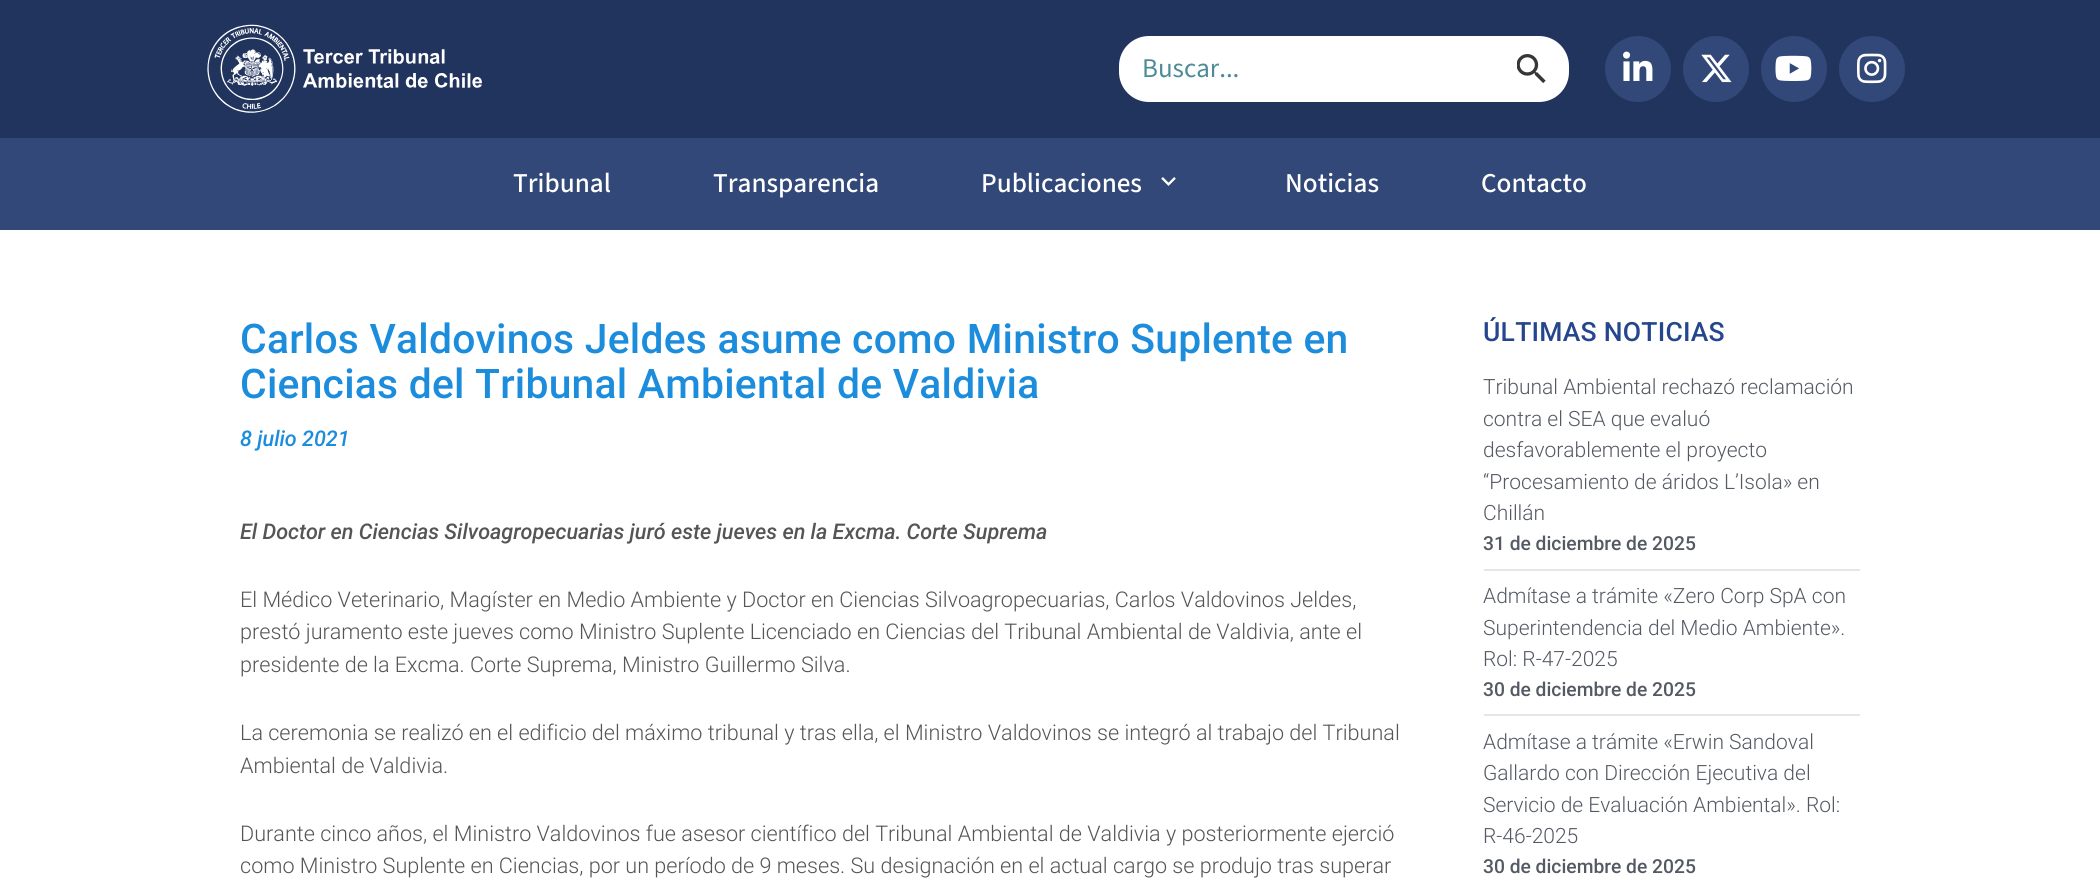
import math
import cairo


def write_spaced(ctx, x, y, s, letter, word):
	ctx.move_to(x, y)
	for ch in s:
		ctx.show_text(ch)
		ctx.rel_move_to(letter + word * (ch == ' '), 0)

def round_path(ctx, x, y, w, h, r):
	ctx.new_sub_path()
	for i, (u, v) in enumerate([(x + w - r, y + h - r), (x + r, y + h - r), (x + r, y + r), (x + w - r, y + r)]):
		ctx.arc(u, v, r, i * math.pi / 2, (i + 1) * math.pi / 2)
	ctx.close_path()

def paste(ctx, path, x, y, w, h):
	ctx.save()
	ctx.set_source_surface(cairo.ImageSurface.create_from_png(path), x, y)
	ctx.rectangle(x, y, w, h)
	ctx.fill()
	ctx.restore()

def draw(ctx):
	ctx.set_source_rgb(1, 1, 1)
	ctx.paint()
	ctx.set_source_rgb(0.129, 0.204, 0.369)
	ctx.rectangle(0, 0, 2100, 138)
	ctx.fill()
	paste(ctx, 'media/1.png', 207, 24, 275, 89)
	ctx.set_source_rgb(1, 1, 1)
	round_path(ctx, 1119, 36, 450, 66, 30)
	ctx.fill()
	ctx.select_font_face('Source Sans 3')
	ctx.set_font_size(27)
	ctx.set_source_rgb(0.302, 0.549, 0.584)
	ctx.move_to(1142, 77)
	ctx.show_text('Buscar...')
	paste(ctx, 'media/2.png', 1517, 54, 29, 30)
	ctx.set_source_rgb(0.196, 0.282, 0.471)
	ctx.arc(1638, 69, 33, 0, 2 * math.pi)
	ctx.fill()
	paste(ctx, 'media/3.png', 1623, 51, 30, 30)
	ctx.arc(1716, 69, 33, 0, 2 * math.pi)
	ctx.fill()
	paste(ctx, 'media/4.png', 1701, 54, 31, 29)
	ctx.arc(1794, 69, 33, 0, 2 * math.pi)
	ctx.fill()
	paste(ctx, 'media/5.png', 1775, 55, 37, 26)
	ctx.arc(1872, 69, 33, 0, 2 * math.pi)
	ctx.fill()
	paste(ctx, 'media/6.png', 1857, 53, 30, 31)
	ctx.rectangle(0, 138, 2100, 92)
	ctx.fill()
	ctx.select_font_face('Source Sans 3 Medium')
	ctx.set_font_size(27.25)
	ctx.set_source_rgb(1, 1, 1)
	for x, y, s in [
		(513, 192, 'Tribunal'),
		(713, 192, 'Transparencia'),
		(981, 192, 'Publicaciones'),
	]:
		ctx.move_to(x, y)
		ctx.show_text(s)
	paste(ctx, 'media/7.png', 1161, 177, 15, 9)
	ctx.move_to(1285, 192)
	ctx.show_text('Noticias')
	ctx.move_to(1481, 192)
	ctx.show_text('Contacto')
	ctx.select_font_face('Roboto Medium')
	ctx.set_font_size(40.8)
	ctx.set_source_rgb(0.11, 0.553, 0.863)
	write_spaced(ctx, 240, 353, 'Carlos Valdovinos Jeldes asume como Ministro Suplente en', 0.25, 0)
	write_spaced(ctx, 240, 398, 'Ciencias del Tribunal Ambiental de Valdivia', 0.25, 0)
	ctx.select_font_face('Roboto Medium', cairo.FONT_SLANT_ITALIC)
	ctx.set_font_size(21.6)
	ctx.move_to(240, 446)
	ctx.show_text('8 julio 2021')
	ctx.set_source_rgb(0.333, 0.333, 0.333)
	ctx.move_to(240, 539)
	ctx.show_text('El Doctor en Ciencias Silvoagropecuarias juró este jueves en la Excma. Corte Suprema')
	ctx.select_font_face('Roboto Light')
	for x, y, s in [
		(240, 607, 'El Médico Veterinario, Magíster en Medio Ambiente y Doctor en Ciencias Silvoagropecuarias, Carlos Valdovinos Jeldes,'),
		(240, 639, 'prestó juramento este jueves como Ministro Suplente Licenciado en Ciencias del Tribunal Ambiental de Valdivia, ante el'),
		(240, 672, 'presidente de la Excma. Corte Suprema, Ministro Guillermo Silva.'),
		(240, 740, 'La ceremonia se realizó en el edificio del máximo tribunal y tras ella, el Ministro Valdovinos se integró al trabajo del Tribunal'),
		(240, 773, 'Ambiental de Valdivia.'),
		(240, 841, 'Durante cinco años, el Ministro Valdovinos fue asesor científico del Tribunal Ambiental de Valdivia y posteriormente ejerció'),
		(240, 873, 'como Ministro Suplente en Ciencias, por un período de 9 meses. Su designación en el actual cargo se produjo tras superar'),
	]:
		ctx.move_to(x, y)
		ctx.show_text(s)
	ctx.select_font_face('Roboto Medium')
	ctx.set_font_size(26.5)
	ctx.set_source_rgb(0.145, 0.275, 0.553)
	write_spaced(ctx, 1483, 341, 'ÚLTIMAS NOTICIAS', 0.25, 0)
	ctx.set_source_rgb(0.902, 0.902, 0.902)
	ctx.rectangle(1484, 569, 376, 2)
	ctx.fill()
	ctx.select_font_face('Roboto Light')
	ctx.set_font_size(21)
	ctx.set_source_rgb(0.329, 0.349, 0.388)
	for x, y, s in [
		(1483, 394, 'Tribunal Ambiental rechazó reclamación'),
		(1483, 426, 'contra el SEA que evaluó'),
		(1483, 457, 'desfavorablemente el proyecto'),
		(1483, 489, '“Procesamiento de áridos L’Isola» en'),
		(1483, 520, 'Chillán'),
	]:
		ctx.move_to(x, y)
		ctx.show_text(s)
	ctx.select_font_face('Roboto Medium')
	ctx.set_font_size(19.25)
	ctx.move_to(1483, 550)
	ctx.show_text('31 de diciembre de 2025')
	ctx.set_source_rgb(0.902, 0.902, 0.902)
	ctx.rectangle(1484, 714, 376, 2)
	ctx.fill()
	ctx.select_font_face('Roboto Light')
	ctx.set_font_size(21)
	ctx.set_source_rgb(0.329, 0.349, 0.388)
	for x, y, s in [
		(1483, 603, 'Admítase a trámite «Zero Corp SpA con'),
		(1483, 635, 'Superintendencia del Medio Ambiente».'),
		(1483, 666, 'Rol: R-47-2025'),
	]:
		ctx.move_to(x, y)
		ctx.show_text(s)
	ctx.select_font_face('Roboto Medium')
	ctx.set_font_size(19.25)
	ctx.move_to(1483, 696)
	ctx.show_text('30 de diciembre de 2025')
	ctx.select_font_face('Roboto Light')
	ctx.set_font_size(21)
	for x, y, s in [
		(1483, 749, 'Admítase a trámite «Erwin Sandoval'),
		(1483, 780, 'Gallardo con Dirección Ejecutiva del'),
		(1483, 812, 'Servicio de Evaluación Ambiental». Rol:'),
		(1483, 843, 'R-46-2025'),
	]:
		ctx.move_to(x, y)
		ctx.show_text(s)
	ctx.select_font_face('Roboto Medium')
	ctx.set_font_size(19.25)
	ctx.move_to(1483, 873)
	ctx.show_text('30 de diciembre de 2025')


surface = cairo.ImageSurface(cairo.FORMAT_RGB24, 2100, 882)
ctx = cairo.Context(surface)
options = cairo.FontOptions()
options.set_hint_metrics(cairo.HINT_METRICS_OFF)
options.set_hint_style(cairo.HINT_STYLE_NONE)
ctx.set_font_options(options)
ctx.set_miter_limit(4)
draw(ctx)
surface.write_to_png('image.png')
